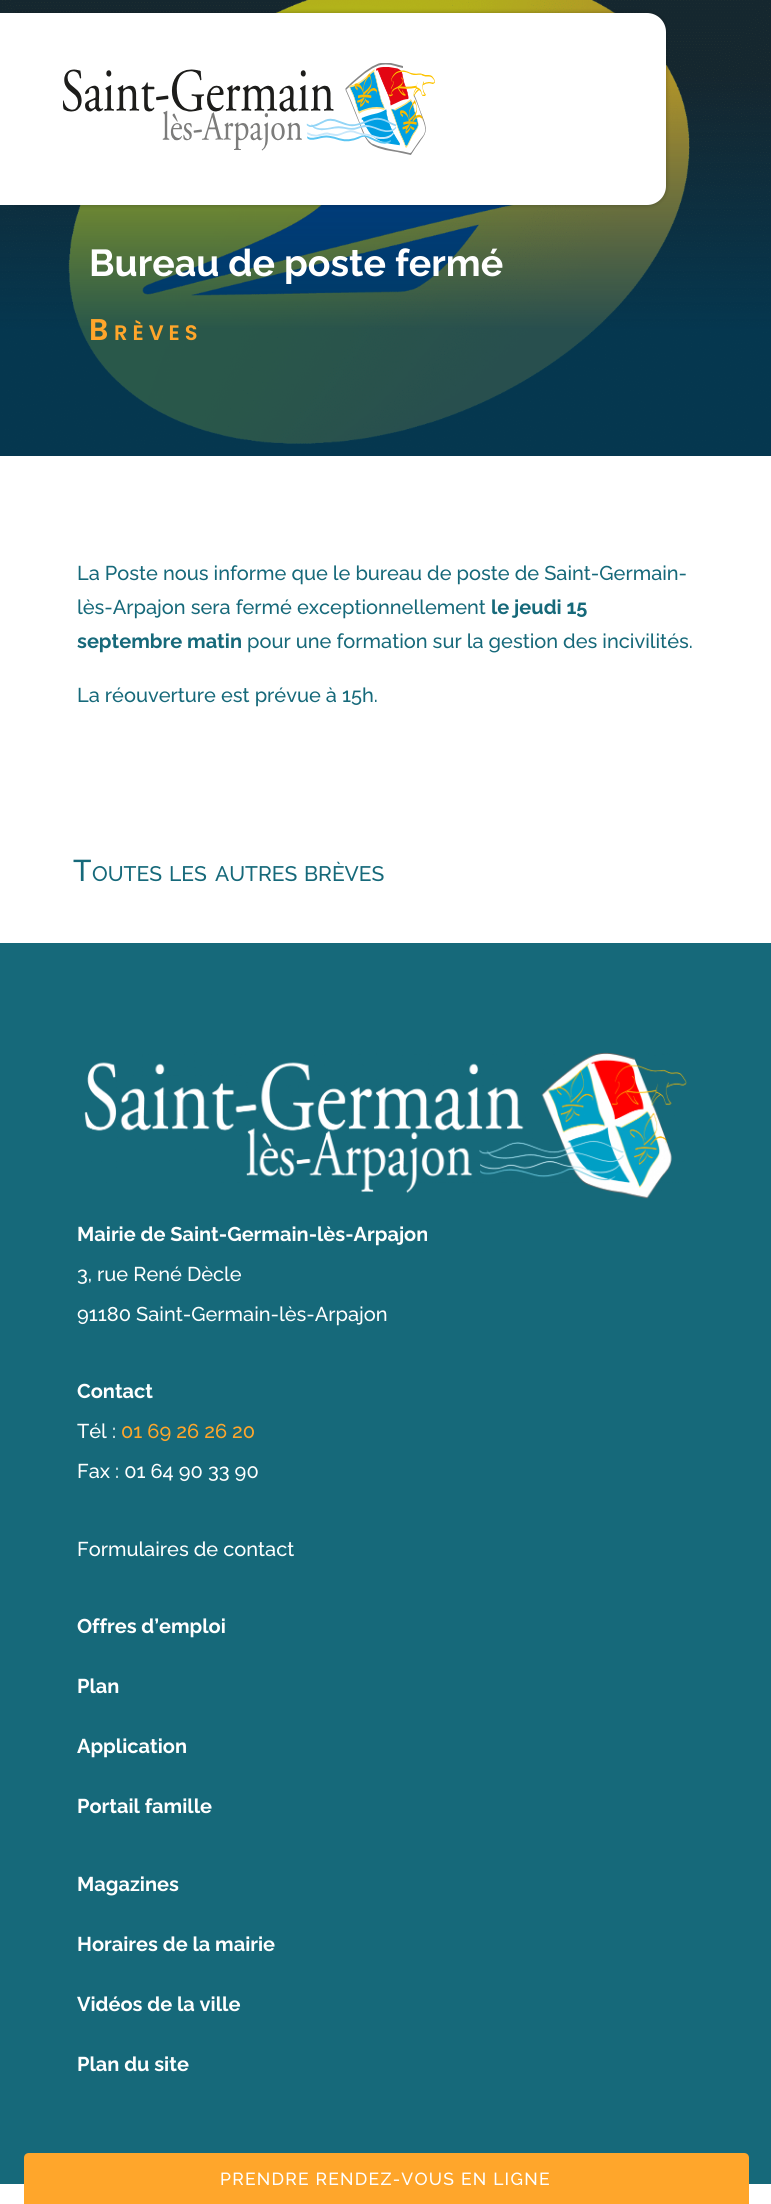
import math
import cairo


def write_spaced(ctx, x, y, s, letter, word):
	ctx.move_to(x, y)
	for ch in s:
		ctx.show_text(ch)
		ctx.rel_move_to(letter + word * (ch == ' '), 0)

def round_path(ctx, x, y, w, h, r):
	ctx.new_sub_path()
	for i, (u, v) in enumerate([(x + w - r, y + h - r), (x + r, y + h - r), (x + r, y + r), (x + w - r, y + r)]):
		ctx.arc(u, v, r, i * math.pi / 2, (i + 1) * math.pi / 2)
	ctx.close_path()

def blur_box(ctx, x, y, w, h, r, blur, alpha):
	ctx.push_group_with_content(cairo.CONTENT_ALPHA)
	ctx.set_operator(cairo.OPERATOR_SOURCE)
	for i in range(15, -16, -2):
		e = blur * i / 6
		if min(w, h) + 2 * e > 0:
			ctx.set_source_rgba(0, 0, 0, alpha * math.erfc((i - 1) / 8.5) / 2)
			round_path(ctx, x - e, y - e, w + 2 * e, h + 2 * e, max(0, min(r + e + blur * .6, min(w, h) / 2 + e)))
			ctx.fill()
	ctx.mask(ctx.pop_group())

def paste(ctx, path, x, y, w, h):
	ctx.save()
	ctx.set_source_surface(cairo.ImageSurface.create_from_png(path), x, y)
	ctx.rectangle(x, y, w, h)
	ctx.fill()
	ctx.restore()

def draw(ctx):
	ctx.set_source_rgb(1, 1, 1)
	ctx.paint()
	paste(ctx, 'media/2.png', 0, 0, 771, 456)
	ctx.set_source_rgb(0, 0, 0)
	blur_box(ctx, 0, 13, 666, 192, 19, 2.5, 0.3)
	ctx.set_source_rgb(1, 1, 1)
	ctx.new_path()
	ctx.move_to(0, 13)
	ctx.line_to(647, 13)
	ctx.curve_to(657.5, 13, 666, 21.5, 666, 32)
	ctx.line_to(666, 186)
	ctx.curve_to(666, 196.5, 657.5, 205, 647, 205)
	ctx.line_to(0, 205)
	ctx.close_path()
	ctx.fill()
	paste(ctx, 'media/1.png', 63, 63, 372, 92)
	ctx.select_font_face('Raleway', cairo.FONT_SLANT_NORMAL, cairo.FONT_WEIGHT_BOLD)
	ctx.set_font_size(37.5)
	ctx.move_to(89, 276)
	ctx.show_text('Bureau de poste fermé')
	ctx.select_font_face('Poppins SemiBold')
	ctx.set_font_size(30)
	ctx.set_source_rgb(1, 0.651, 0.169)
	write_spaced(ctx, 89, 340, 'B', 5, 0)
	ctx.set_font_size(21)
	write_spaced(ctx, 114, 340, 'RÈVES', 5, 0)
	ctx.select_font_face('Raleway Medium')
	ctx.set_font_size(20)
	ctx.set_source_rgb(0.086, 0.412, 0.478)
	ctx.move_to(77, 580)
	ctx.show_text('La Poste nous informe que le bureau de poste de Saint-Germain-')
	ctx.move_to(77, 614)
	ctx.show_text('lès-Arpajon sera fermé exceptionnellement')
	ctx.select_font_face('Raleway', cairo.FONT_SLANT_NORMAL, cairo.FONT_WEIGHT_BOLD)
	ctx.move_to(491, 614)
	ctx.show_text('le jeudi 15')
	ctx.move_to(77, 648)
	ctx.show_text('septembre matin')
	ctx.select_font_face('Raleway Medium')
	ctx.move_to(247, 648)
	ctx.show_text('pour une formation sur la gestion des incivilités.')
	ctx.move_to(77, 702)
	ctx.show_text('La réouverture est prévue à 15h.')
	ctx.set_font_size(30)
	ctx.move_to(73, 881)
	ctx.show_text('T')
	ctx.set_font_size(21)
	for x, y, s in [
		(92, 881, 'OUTES'),
		(169, 881, 'LES'),
		(215, 881, 'AUTRES'),
		(304, 881, 'BRÈVES'),
	]:
		ctx.move_to(x, y)
		ctx.show_text(s)
	ctx.rectangle(0, 943, 771, 1241)
	ctx.fill()
	paste(ctx, 'media/3.png', 84, 1052, 603, 147)
	ctx.select_font_face('Raleway', cairo.FONT_SLANT_NORMAL, cairo.FONT_WEIGHT_BOLD)
	ctx.set_font_size(20)
	ctx.set_source_rgb(1, 1, 1)
	ctx.move_to(77, 1241)
	ctx.show_text('Mairie de Saint-Germain-lès-Arpajon')
	ctx.select_font_face('Raleway Medium')
	ctx.move_to(77, 1281)
	ctx.show_text('3, rue René Dècle')
	ctx.move_to(77, 1321)
	ctx.show_text('91180 Saint-Germain-lès-Arpajon')
	ctx.select_font_face('Raleway', cairo.FONT_SLANT_NORMAL, cairo.FONT_WEIGHT_BOLD)
	ctx.move_to(77, 1398)
	ctx.show_text('Contact')
	ctx.select_font_face('Raleway Medium')
	ctx.move_to(77, 1438)
	ctx.show_text('Tél :')
	ctx.set_source_rgb(1, 0.651, 0.169)
	ctx.move_to(121, 1438)
	ctx.show_text('01 69 26 26 20')
	ctx.set_source_rgb(1, 1, 1)
	ctx.move_to(77, 1478)
	ctx.show_text('Fax : 01 64 90 33 90')
	ctx.move_to(77, 1556)
	ctx.show_text('Formulaires de contact')
	ctx.select_font_face('Raleway', cairo.FONT_SLANT_NORMAL, cairo.FONT_WEIGHT_BOLD)
	for x, y, s in [
		(77, 1633, 'Offres d’emploi'),
		(77, 1693, 'Plan'),
		(77, 1753, 'Application'),
		(77, 1813, 'Portail famille'),
		(77, 1891, 'Magazines'),
		(77, 1951, 'Horaires de la mairie'),
		(77, 2011, 'Vidéos de la ville'),
		(77, 2071, 'Plan du site'),
	]:
		ctx.move_to(x, y)
		ctx.show_text(s)
	ctx.set_source_rgb(1, 0.651, 0.169)
	ctx.new_path()
	ctx.move_to(29, 2153)
	ctx.line_to(744, 2153)
	ctx.curve_to(747, 2153, 749, 2155, 749, 2158)
	ctx.line_to(749, 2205)
	ctx.line_to(24, 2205)
	ctx.line_to(24, 2158)
	ctx.curve_to(24, 2155, 26, 2153, 29, 2153)
	ctx.close_path()
	ctx.fill()
	ctx.select_font_face('Raleway Medium')
	ctx.set_font_size(17.5)
	ctx.set_source_rgb(1, 1, 1)
	write_spaced(ctx, 220, 2185, 'PRENDRE RENDEZ-VOUS EN LIGNE', 1.25, 0)


surface = cairo.ImageSurface(cairo.FORMAT_RGB24, 771, 2204)
ctx = cairo.Context(surface)
options = cairo.FontOptions()
options.set_hint_metrics(cairo.HINT_METRICS_OFF)
options.set_hint_style(cairo.HINT_STYLE_NONE)
ctx.set_font_options(options)
ctx.set_miter_limit(4)
draw(ctx)
surface.write_to_png('image.png')
